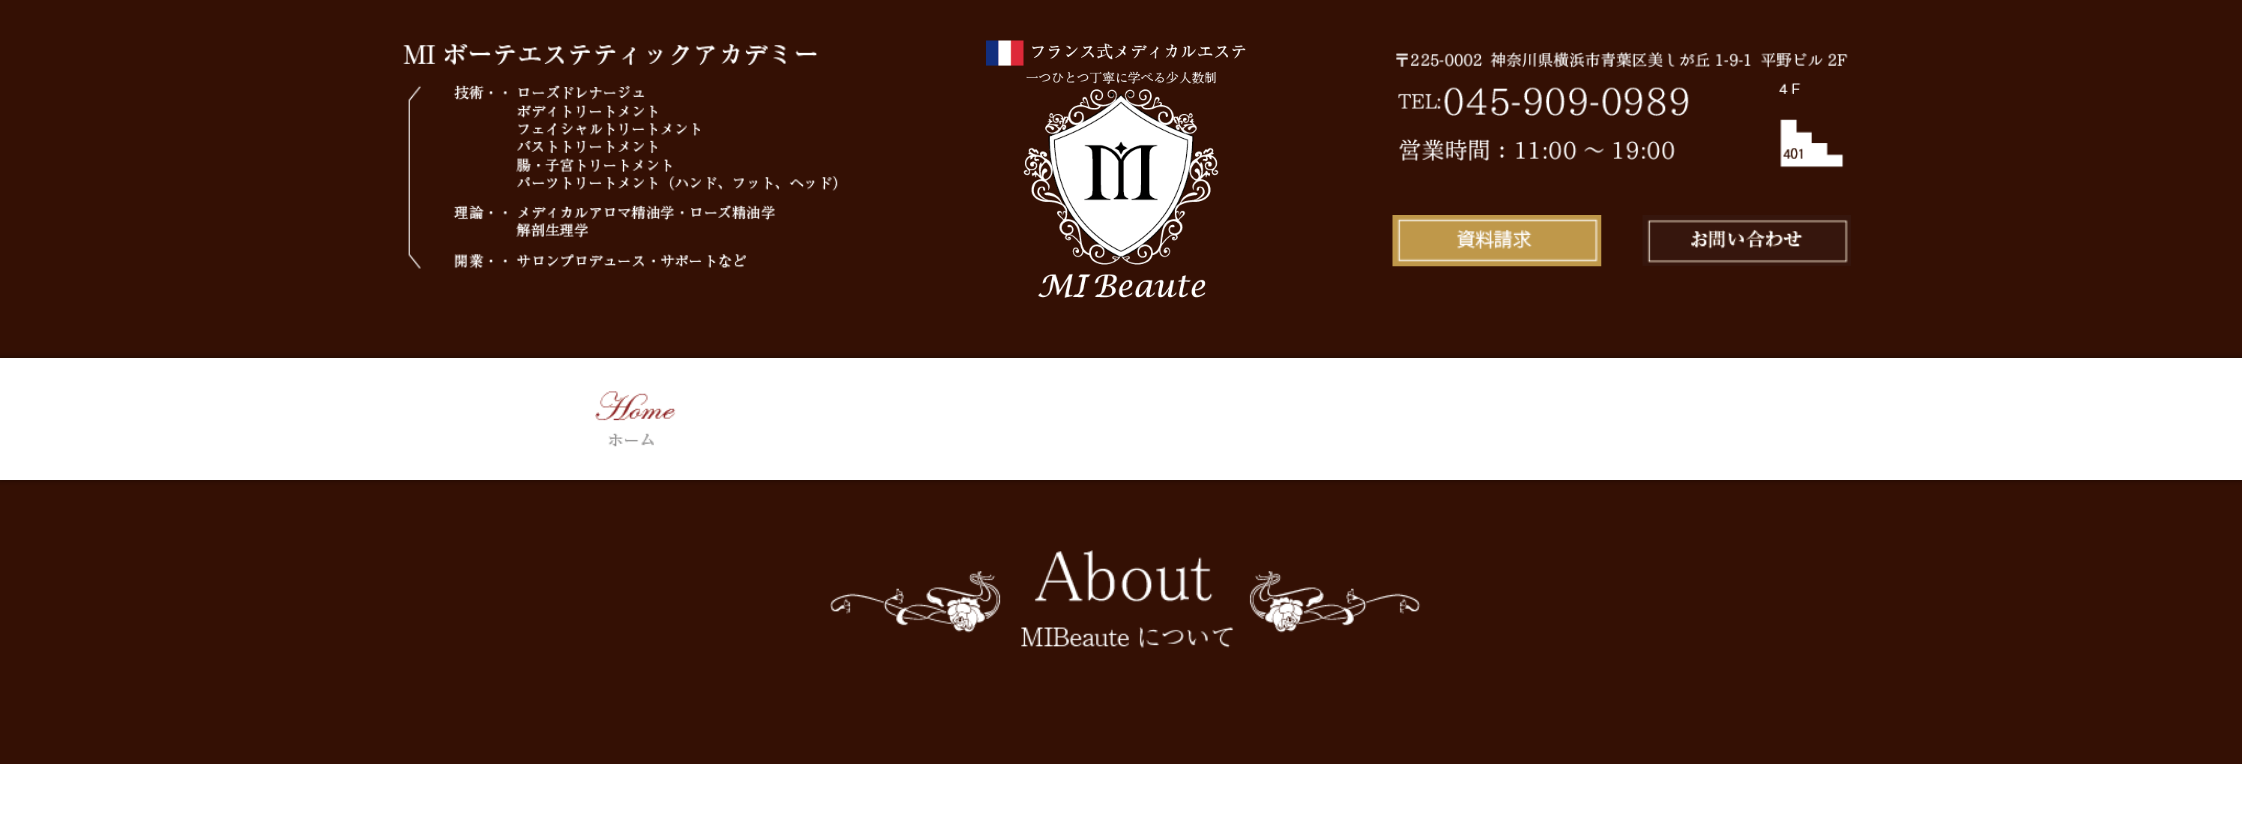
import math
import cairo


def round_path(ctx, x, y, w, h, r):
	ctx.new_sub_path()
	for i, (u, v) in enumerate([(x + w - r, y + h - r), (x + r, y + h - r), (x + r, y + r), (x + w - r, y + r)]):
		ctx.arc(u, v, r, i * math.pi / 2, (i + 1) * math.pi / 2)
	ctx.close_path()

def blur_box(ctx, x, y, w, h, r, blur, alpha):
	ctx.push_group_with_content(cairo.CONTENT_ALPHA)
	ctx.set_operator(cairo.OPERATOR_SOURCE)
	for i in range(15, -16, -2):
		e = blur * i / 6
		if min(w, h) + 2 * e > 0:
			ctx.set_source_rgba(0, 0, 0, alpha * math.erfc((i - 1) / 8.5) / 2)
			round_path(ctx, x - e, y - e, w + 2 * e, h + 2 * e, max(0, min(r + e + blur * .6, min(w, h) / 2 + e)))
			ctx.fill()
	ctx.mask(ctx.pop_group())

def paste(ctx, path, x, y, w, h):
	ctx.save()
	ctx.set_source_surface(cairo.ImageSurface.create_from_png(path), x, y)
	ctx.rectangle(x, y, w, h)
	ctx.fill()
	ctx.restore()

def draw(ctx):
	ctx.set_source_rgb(0.204, 0.063, 0.016)
	ctx.paint()
	paste(ctx, 'media/1.png', 403, 44, 435, 225)
	paste(ctx, 'media/2.png', 986, 40, 260, 258)
	paste(ctx, 'media/3.png', 1396, 52, 452, 116)
	paste(ctx, 'media/4.png', 1392, 215, 210, 52)
	paste(ctx, 'media/5.png', 1642, 215, 209, 51)
	ctx.set_source_rgb(0, 0, 0)
	blur_box(ctx, 0, 358, 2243, 122, 0, 3, 0.5)
	ctx.set_source_rgb(1, 1, 1)
	ctx.rectangle(0, 358, 2242, 122)
	ctx.fill()
	paste(ctx, 'media/6.png', 595, 391, 81, 56)
	paste(ctx, 'media/7.png', 830, 550, 591, 98)
	ctx.rectangle(0, 764, 2242, 54)
	ctx.fill()


surface = cairo.ImageSurface(cairo.FORMAT_RGB24, 2242, 818)
ctx = cairo.Context(surface)
options = cairo.FontOptions()
options.set_hint_metrics(cairo.HINT_METRICS_OFF)
options.set_hint_style(cairo.HINT_STYLE_NONE)
ctx.set_font_options(options)
ctx.set_miter_limit(4)
draw(ctx)
surface.write_to_png('image.png')
